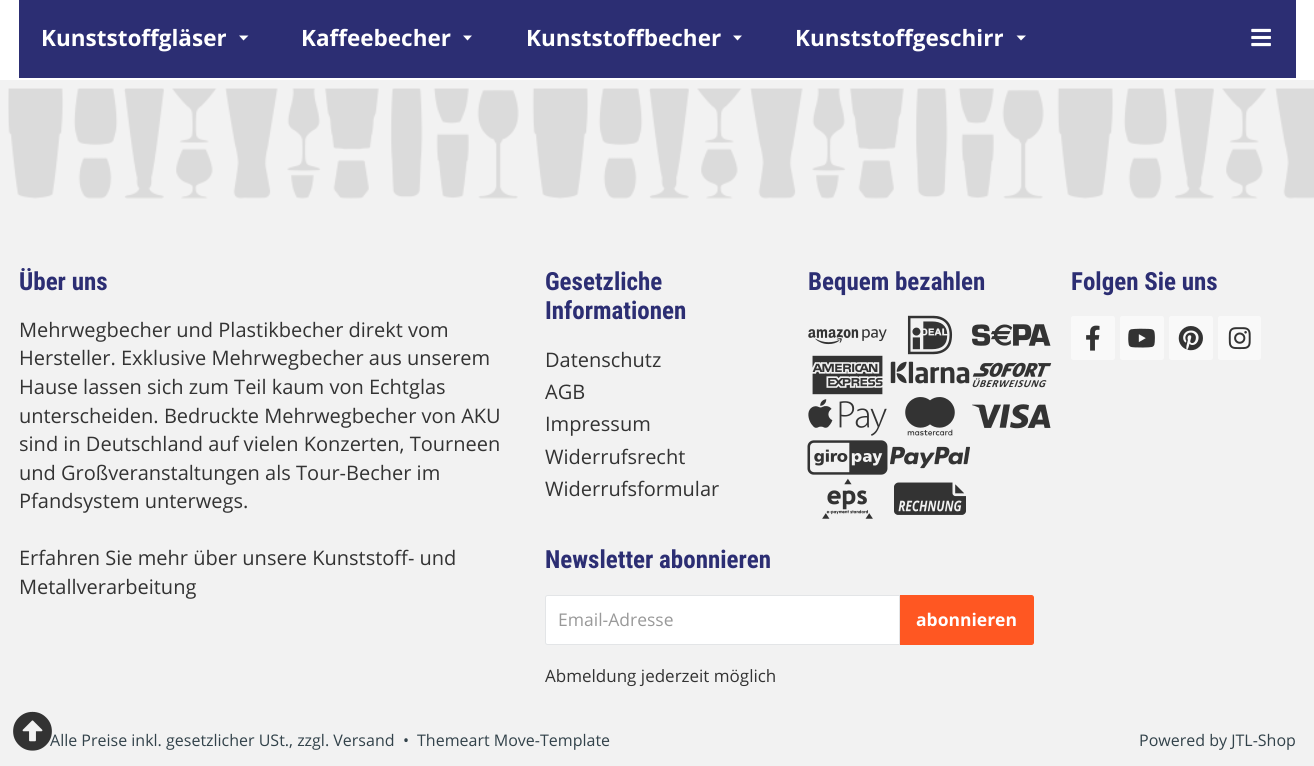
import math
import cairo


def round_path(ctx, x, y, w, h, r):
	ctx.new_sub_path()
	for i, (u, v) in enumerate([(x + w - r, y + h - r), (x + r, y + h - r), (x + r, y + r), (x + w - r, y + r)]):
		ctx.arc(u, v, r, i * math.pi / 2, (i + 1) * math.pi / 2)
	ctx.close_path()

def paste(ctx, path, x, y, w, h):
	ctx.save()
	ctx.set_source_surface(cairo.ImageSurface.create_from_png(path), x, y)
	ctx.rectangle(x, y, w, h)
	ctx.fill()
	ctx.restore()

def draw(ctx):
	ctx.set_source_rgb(1, 1, 1)
	ctx.paint()
	ctx.set_source_rgb(0.173, 0.18, 0.451)
	ctx.rectangle(19, 0, 1277, 78)
	ctx.fill()
	ctx.select_font_face('Open Sans', cairo.FONT_SLANT_NORMAL, cairo.FONT_WEIGHT_BOLD)
	ctx.set_font_size(22.5)
	ctx.set_source_rgb(1, 1, 1)
	ctx.move_to(41, 46)
	ctx.show_text('Kunststoffgläser')
	ctx.new_path()
	ctx.move_to(239, 35.5)
	ctx.line_to(248.5, 35.5)
	ctx.line_to(243.5, 40.5)
	ctx.close_path()
	ctx.fill()
	ctx.move_to(301, 46)
	ctx.show_text('Kaffeebecher')
	ctx.new_path()
	ctx.move_to(463, 35.5)
	ctx.line_to(472, 35.5)
	ctx.line_to(467.5, 40.5)
	ctx.close_path()
	ctx.fill()
	ctx.move_to(526, 46)
	ctx.show_text('Kunststoffbecher')
	ctx.new_path()
	ctx.move_to(733, 35.5)
	ctx.line_to(742, 35.5)
	ctx.line_to(737.5, 40.5)
	ctx.close_path()
	ctx.fill()
	ctx.move_to(795, 46)
	ctx.show_text('Kunststoffgeschirr')
	ctx.new_path()
	ctx.move_to(1016.5, 35.5)
	ctx.line_to(1026, 35.5)
	ctx.line_to(1021, 40.5)
	ctx.close_path()
	ctx.fill()
	paste(ctx, 'media/1.png', 1251, 28, 20, 19)
	ctx.set_source_rgb(0.949, 0.949, 0.949)
	ctx.rectangle(0, 80, 1314, 686)
	ctx.fill()
	paste(ctx, 'media/2.png', 8, 88, 1306, 111)
	ctx.select_font_face('Roboto Condensed', cairo.FONT_SLANT_NORMAL, cairo.FONT_WEIGHT_BOLD)
	ctx.set_font_size(25)
	ctx.set_source_rgb(0.173, 0.18, 0.451)
	ctx.move_to(19, 290)
	ctx.show_text('Über uns')
	ctx.select_font_face('Open Sans')
	ctx.set_font_size(20)
	ctx.set_source_rgb(0.2, 0.2, 0.2)
	for x, y, s in [
		(19, 337, 'Mehrwegbecher und Plastikbecher direkt vom'),
		(19, 365, 'Hersteller. Exklusive Mehrwegbecher aus unserem'),
		(19, 394, 'Hause lassen sich zum Teil kaum von Echtglas'),
		(19, 423, 'unterscheiden. Bedruckte Mehrwegbecher von AKU'),
		(19, 451, 'sind in Deutschland auf vielen Konzerten, Tourneen'),
		(19, 480, 'und Großveranstaltungen als Tour-Becher im'),
		(19, 508, 'Pfandsystem unterwegs.'),
		(19, 565, 'Erfahren Sie mehr über unsere Kunststoff- und'),
		(19, 594, 'Metallverarbeitung'),
	]:
		ctx.move_to(x, y)
		ctx.show_text(s)
	ctx.select_font_face('Roboto Condensed', cairo.FONT_SLANT_NORMAL, cairo.FONT_WEIGHT_BOLD)
	ctx.set_font_size(25)
	ctx.set_source_rgb(0.173, 0.18, 0.451)
	ctx.move_to(545, 290)
	ctx.show_text('Gesetzliche')
	ctx.move_to(545, 319)
	ctx.show_text('Informationen')
	ctx.select_font_face('Open Sans')
	ctx.set_font_size(20)
	ctx.set_source_rgb(0.2, 0.2, 0.2)
	for x, y, s in [
		(545, 367, 'Datenschutz'),
		(545, 399, 'AGB'),
		(545, 431, 'Impressum'),
		(545, 464, 'Widerrufsrecht'),
		(545, 496, 'Widerrufsformular'),
	]:
		ctx.move_to(x, y)
		ctx.show_text(s)
	ctx.select_font_face('Roboto Condensed', cairo.FONT_SLANT_NORMAL, cairo.FONT_WEIGHT_BOLD)
	ctx.set_font_size(25)
	ctx.set_source_rgb(0.173, 0.18, 0.451)
	ctx.move_to(808, 290)
	ctx.show_text('Bequem bezahlen')
	paste(ctx, 'media/3.png', 808, 329, 79, 16)
	paste(ctx, 'media/4.png', 907, 315, 46, 40)
	paste(ctx, 'media/5.png', 972, 324, 79, 22)
	paste(ctx, 'media/6.png', 812, 355, 71, 40)
	paste(ctx, 'media/7.png', 890, 361, 80, 23)
	paste(ctx, 'media/8.png', 972, 362, 80, 26)
	paste(ctx, 'media/9.png', 808, 399, 79, 37)
	paste(ctx, 'media/10.png', 905, 397, 50, 39)
	paste(ctx, 'media/11.png', 972, 404, 79, 25)
	paste(ctx, 'media/12.png', 807, 440, 81, 35)
	paste(ctx, 'media/13.png', 890, 446, 80, 23)
	paste(ctx, 'media/14.png', 822, 478, 51, 41)
	paste(ctx, 'media/15.png', 894, 482, 72, 33)
	ctx.move_to(1071, 290)
	ctx.show_text('Folgen Sie uns')
	ctx.set_source_rgb(0.973, 0.973, 0.973)
	round_path(ctx, 1071, 316, 44, 44, 2.5)
	ctx.fill()
	paste(ctx, 'media/16.png', 1086, 325, 14, 26)
	round_path(ctx, 1120, 316, 44, 44, 2.5)
	ctx.fill()
	paste(ctx, 'media/17.png', 1128, 328, 27, 20)
	round_path(ctx, 1169, 316, 44, 44, 2.5)
	ctx.fill()
	paste(ctx, 'media/18.png', 1178, 326, 25, 25)
	round_path(ctx, 1218, 316, 43, 44, 2.5)
	ctx.fill()
	paste(ctx, 'media/19.png', 1228, 327, 23, 23)
	ctx.set_source_rgb(0.173, 0.18, 0.451)
	ctx.move_to(545, 568)
	ctx.show_text('Newsletter abonnieren')
	ctx.set_source_rgb(1, 1, 1)
	ctx.new_path()
	ctx.move_to(547.5, 595.5)
	ctx.line_to(899.5, 595.5)
	ctx.line_to(899.5, 644.5)
	ctx.line_to(547.5, 644.5)
	ctx.curve_to(546.5, 644.5, 545.5, 643.5, 545.5, 642.5)
	ctx.line_to(545.5, 597.5)
	ctx.curve_to(545.5, 596.5, 546.5, 595.5, 547.5, 595.5)
	ctx.close_path()
	ctx.fill_preserve()
	ctx.set_source_rgb(0.89, 0.898, 0.906)
	ctx.set_line_width(1)
	ctx.stroke()
	ctx.select_font_face('Open Sans')
	ctx.set_font_size(17.5)
	ctx.set_source_rgb(0.6, 0.6, 0.6)
	ctx.move_to(558, 626)
	ctx.show_text('Email-Adresse')
	ctx.set_source_rgb(1, 0.341, 0.133)
	ctx.new_path()
	ctx.move_to(900.5, 595.5)
	ctx.line_to(1031.5, 595.5)
	ctx.curve_to(1032.5, 595.5, 1033.5, 596.5, 1033.5, 597.5)
	ctx.line_to(1033.5, 642.5)
	ctx.curve_to(1033.5, 643.5, 1032.5, 644.5, 1031.5, 644.5)
	ctx.line_to(900.5, 644.5)
	ctx.close_path()
	ctx.fill_preserve()
	ctx.stroke()
	ctx.select_font_face('Open Sans', cairo.FONT_SLANT_NORMAL, cairo.FONT_WEIGHT_BOLD)
	ctx.set_source_rgb(1, 1, 1)
	ctx.move_to(916, 626)
	ctx.show_text('abonnieren')
	ctx.select_font_face('Open Sans')
	ctx.set_font_size(17)
	ctx.set_source_rgb(0.2, 0.2, 0.2)
	ctx.move_to(545, 682)
	ctx.show_text('Abmeldung jederzeit möglich')
	ctx.set_font_size(16)
	ctx.set_source_rgb(0.196, 0.259, 0.29)
	for x, y, s in [
		(50, 746, 'Alle Preise inkl. gesetzlicher USt., zzgl. Versand'),
		(403, 746, '•'),
		(417, 746, 'Themeart Move-Template'),
		(1139, 746, 'Powered by JTL-Shop'),
	]:
		ctx.move_to(x, y)
		ctx.show_text(s)
	paste(ctx, 'media/20.png', 13, 711, 39, 40)


surface = cairo.ImageSurface(cairo.FORMAT_RGB24, 1314, 766)
ctx = cairo.Context(surface)
options = cairo.FontOptions()
options.set_hint_metrics(cairo.HINT_METRICS_OFF)
options.set_hint_style(cairo.HINT_STYLE_NONE)
ctx.set_font_options(options)
ctx.set_miter_limit(4)
draw(ctx)
surface.write_to_png('image.png')
